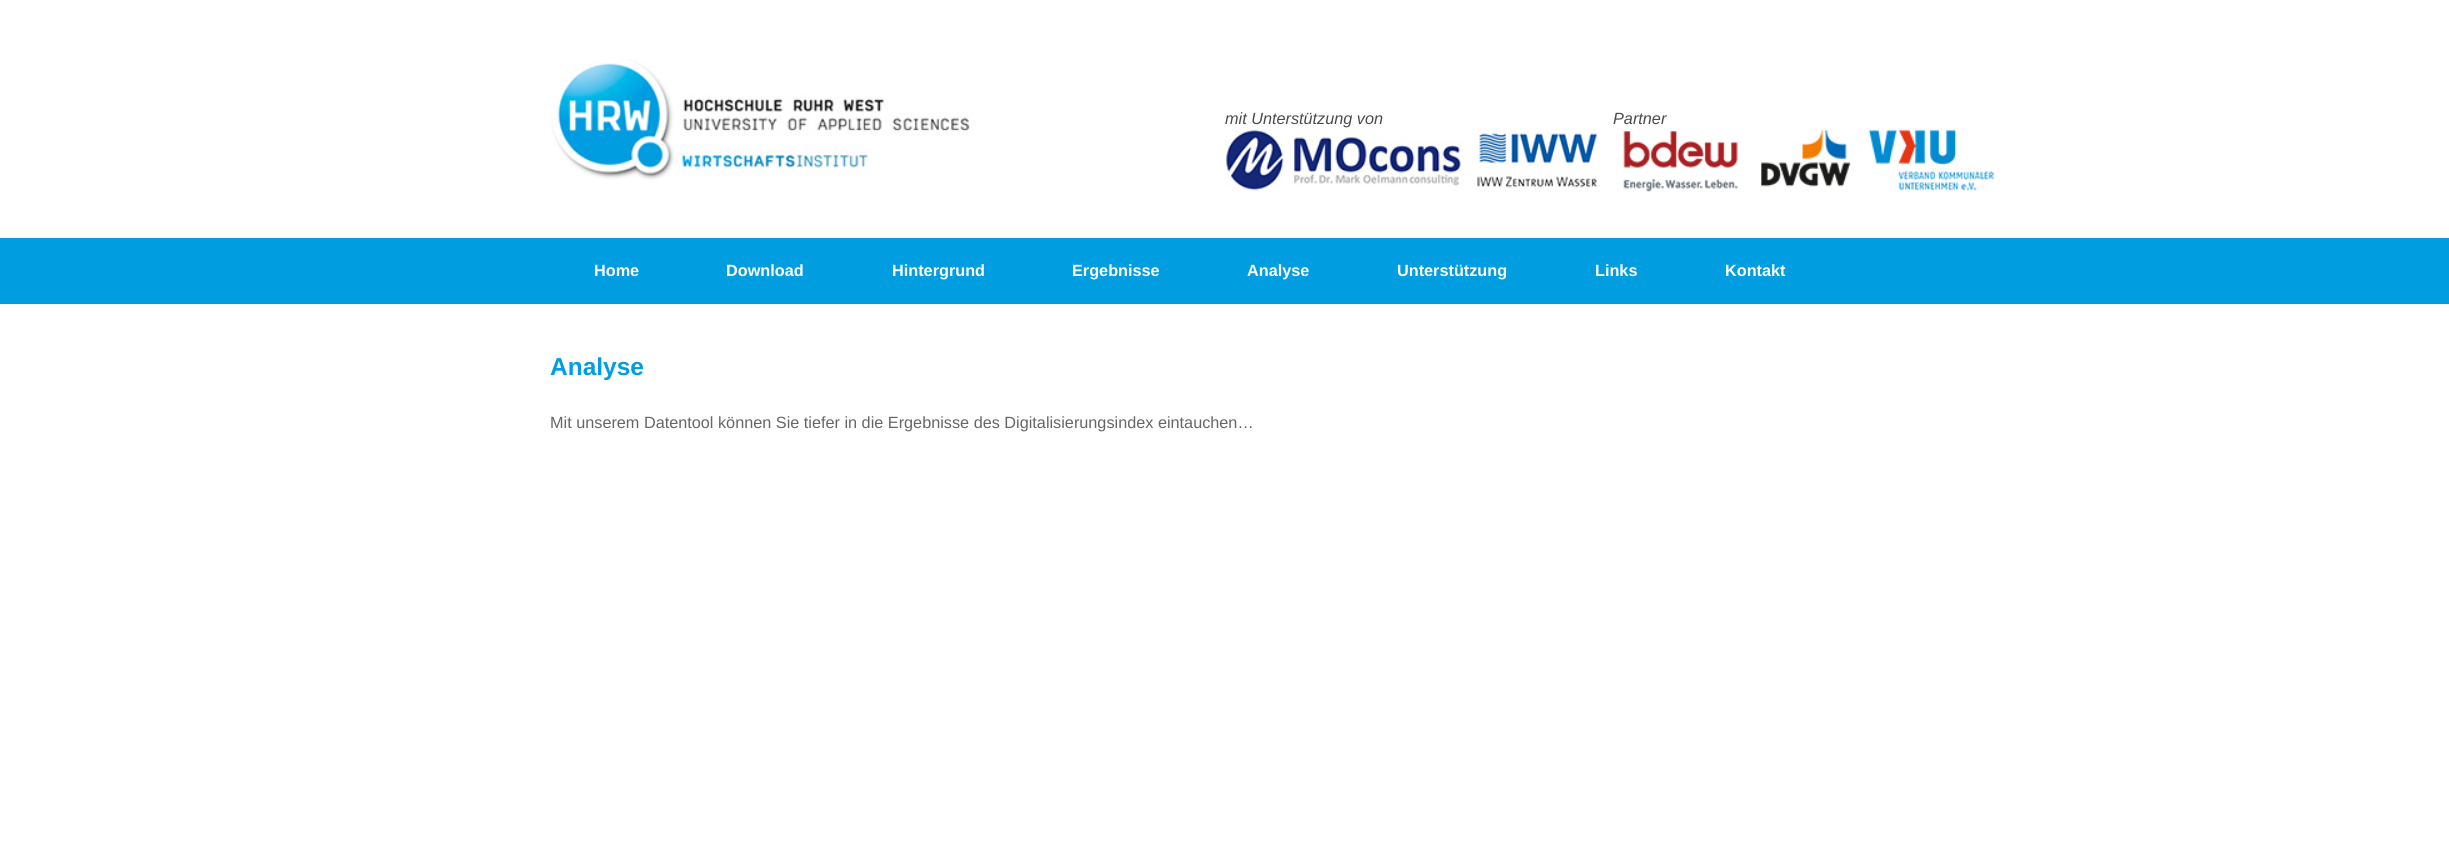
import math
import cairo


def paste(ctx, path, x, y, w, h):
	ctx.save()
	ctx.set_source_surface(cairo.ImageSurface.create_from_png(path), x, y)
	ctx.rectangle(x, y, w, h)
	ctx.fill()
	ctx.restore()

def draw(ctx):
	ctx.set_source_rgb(1, 1, 1)
	ctx.paint()
	paste(ctx, 'media/1.png', 551, 59, 419, 121)
	ctx.select_font_face('Liberation Sans', cairo.FONT_SLANT_ITALIC)
	ctx.set_font_size(16.25)
	ctx.set_source_rgb(0.294, 0.294, 0.294)
	ctx.move_to(1225, 124)
	ctx.show_text('mit Unterstützung von')
	ctx.move_to(1613, 124)
	ctx.show_text('Partner')
	paste(ctx, 'media/2.png', 1225, 129, 238, 62)
	paste(ctx, 'media/3.png', 1477, 129, 121, 59)
	paste(ctx, 'media/4.png', 1623, 131, 115, 61)
	paste(ctx, 'media/5.png', 1761, 130, 90, 57)
	paste(ctx, 'media/6.png', 1868, 129, 126, 62)
	ctx.set_source_rgb(0, 0.62, 0.878)
	ctx.rectangle(0, 238, 2449, 66)
	ctx.fill()
	ctx.select_font_face('Liberation Sans', cairo.FONT_SLANT_NORMAL, cairo.FONT_WEIGHT_BOLD)
	ctx.set_source_rgb(1, 1, 1)
	for x, y, s in [
		(594, 276, 'Home'),
		(726, 276, 'Download'),
		(892, 276, 'Hintergrund'),
		(1072, 276, 'Ergebnisse'),
		(1247, 276, 'Analyse'),
		(1397, 276, 'Unterstützung'),
		(1595, 276, 'Links'),
		(1725, 276, 'Kontakt'),
	]:
		ctx.move_to(x, y)
		ctx.show_text(s)
	ctx.set_font_size(24.5)
	ctx.set_source_rgb(0, 0.62, 0.878)
	ctx.move_to(550, 375)
	ctx.show_text('Analyse')
	ctx.select_font_face('Liberation Sans')
	ctx.set_font_size(16.25)
	ctx.set_source_rgb(0.4, 0.4, 0.4)
	ctx.move_to(550, 428)
	ctx.show_text('Mit unserem Datentool können Sie tiefer in die Ergebnisse des Digitalisierungsindex eintauchen…')


surface = cairo.ImageSurface(cairo.FORMAT_RGB24, 2449, 844)
ctx = cairo.Context(surface)
options = cairo.FontOptions()
options.set_hint_metrics(cairo.HINT_METRICS_OFF)
options.set_hint_style(cairo.HINT_STYLE_NONE)
ctx.set_font_options(options)
ctx.set_miter_limit(4)
draw(ctx)
surface.write_to_png('image.png')
